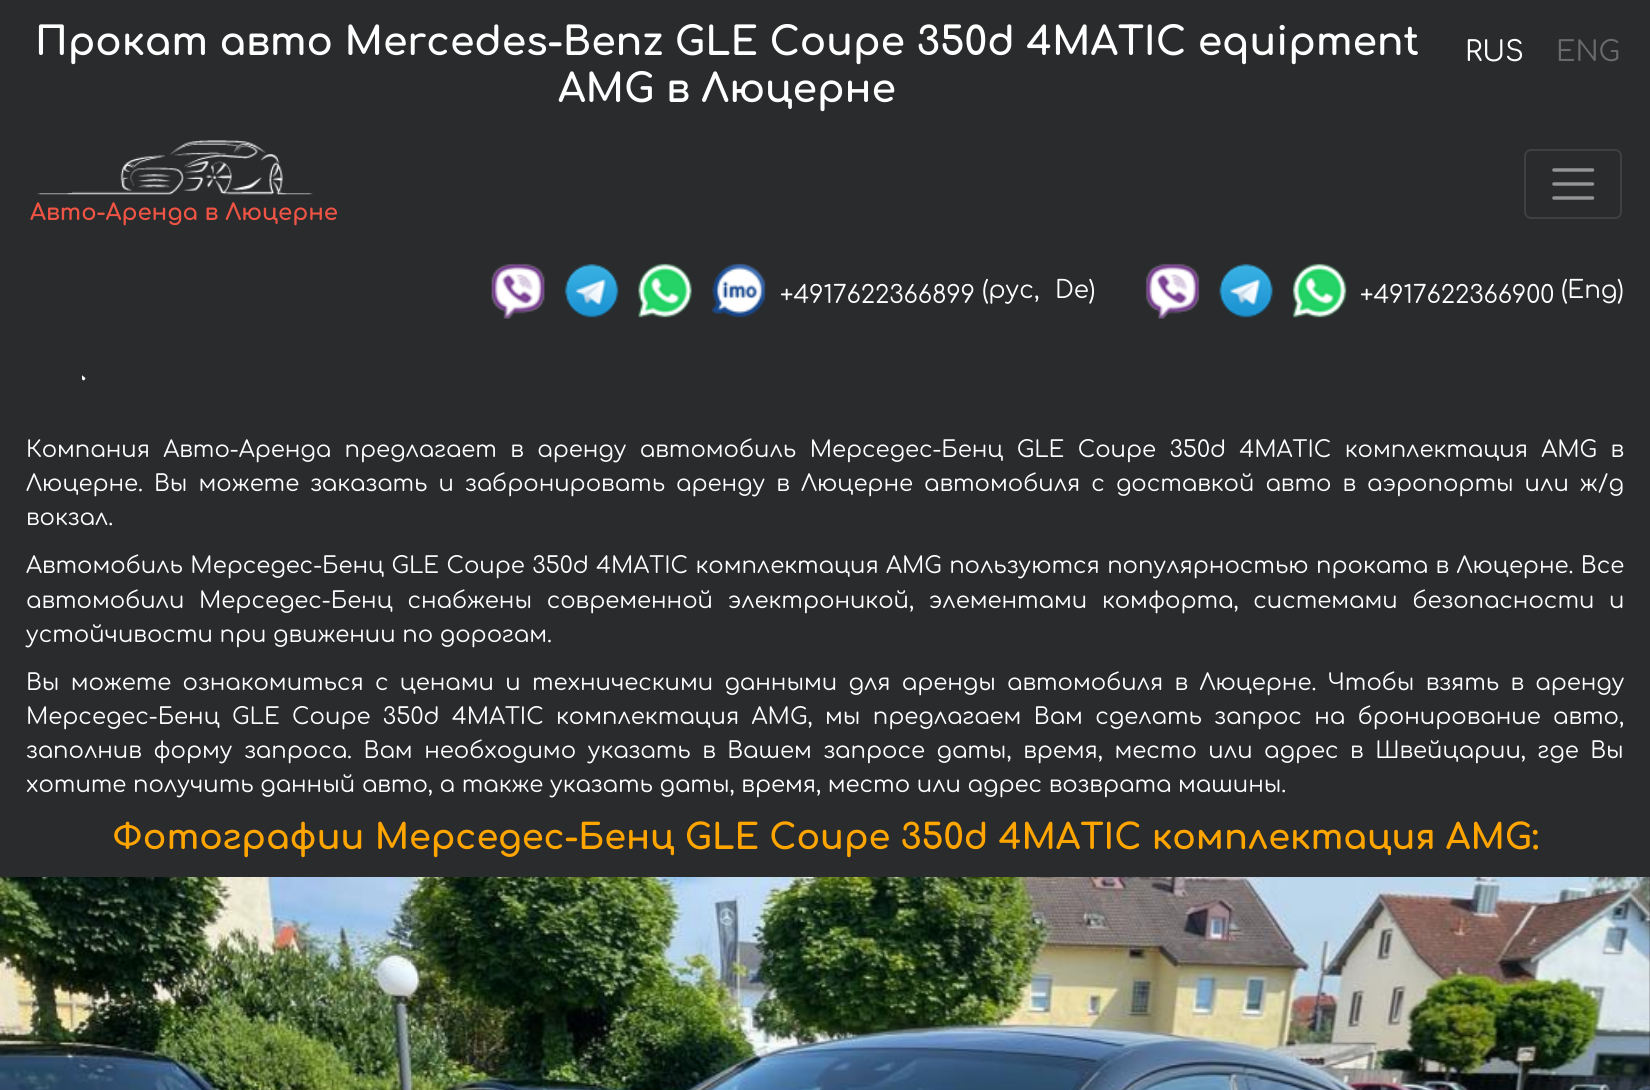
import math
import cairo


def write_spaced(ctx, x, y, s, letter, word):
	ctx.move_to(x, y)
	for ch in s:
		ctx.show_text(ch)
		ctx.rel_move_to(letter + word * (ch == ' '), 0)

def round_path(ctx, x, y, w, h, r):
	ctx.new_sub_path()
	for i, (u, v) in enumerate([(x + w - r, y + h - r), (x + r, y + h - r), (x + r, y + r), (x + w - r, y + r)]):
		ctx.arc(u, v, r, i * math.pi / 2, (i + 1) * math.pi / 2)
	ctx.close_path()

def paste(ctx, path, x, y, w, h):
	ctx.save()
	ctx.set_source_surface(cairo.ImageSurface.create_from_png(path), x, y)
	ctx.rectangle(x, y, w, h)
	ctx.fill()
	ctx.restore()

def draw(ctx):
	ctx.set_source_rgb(0.161, 0.169, 0.173)
	ctx.paint()
	ctx.select_font_face('Comfortaa', cairo.FONT_SLANT_NORMAL, cairo.FONT_WEIGHT_BOLD)
	ctx.set_font_size(39.2)
	ctx.set_source_rgb(1, 1, 1)
	ctx.move_to(35, 55)
	ctx.show_text('Прокат авто Mercedes-Benz GLE Coupe 350d 4MATIC equipment')
	ctx.move_to(558, 102)
	ctx.show_text('AMG в Люцерне')
	ctx.select_font_face('Comfortaa')
	ctx.set_font_size(28)
	ctx.move_to(1465, 61)
	ctx.show_text('RUS')
	ctx.set_source_rgb(0.412, 0.42, 0.42)
	ctx.move_to(1556, 61)
	ctx.show_text('ENG')
	paste(ctx, 'media/1.png', 37, 140, 276, 55)
	ctx.select_font_face('Comfortaa', cairo.FONT_SLANT_NORMAL, cairo.FONT_WEIGHT_BOLD)
	ctx.set_font_size(22.75)
	ctx.set_source_rgb(0.937, 0.329, 0.271)
	ctx.move_to(30, 220)
	ctx.show_text('Авто-Аренда в Люцерне')
	round_path(ctx, 1525, 150, 96, 68, 6)
	ctx.set_source_rgb(0.243, 0.251, 0.255)
	ctx.stroke()
	ctx.new_path()
	ctx.move_to(1554, 170)
	ctx.line_to(1592.5, 170)
	ctx.move_to(1554, 184)
	ctx.line_to(1592.5, 184)
	ctx.move_to(1554, 198)
	ctx.line_to(1592.5, 198)
	ctx.set_source_rgb(0.58, 0.584, 0.588)
	ctx.set_line_width(3.5)
	ctx.set_line_cap(cairo.LINE_CAP_ROUND)
	ctx.stroke()
	paste(ctx, 'media/2.png', 491, 263, 54, 56)
	paste(ctx, 'media/3.png', 564, 263, 55, 55)
	paste(ctx, 'media/4.png', 638, 263, 54, 55)
	paste(ctx, 'media/5.png', 711, 263, 55, 55)
	ctx.select_font_face('Comfortaa')
	ctx.set_font_size(24.5)
	ctx.set_source_rgb(1, 1, 1)
	for x, y, s in [
		(780, 303, '+4917622366899'),
		(982, 298, '(рус,'),
		(1055, 298, 'De)'),
	]:
		ctx.move_to(x, y)
		ctx.show_text(s)
	paste(ctx, 'media/6.png', 1145, 263, 55, 56)
	paste(ctx, 'media/7.png', 1219, 263, 54, 55)
	paste(ctx, 'media/8.png', 1292, 263, 55, 55)
	ctx.move_to(1360, 303)
	ctx.show_text('+4917622366900')
	ctx.move_to(1561, 298)
	ctx.show_text('(Eng)')
	paste(ctx, 'media/9.png', 82, 375, 4, 6)
	ctx.set_font_size(22.75)
	write_spaced(ctx, 26, 457, 'Компания Авто-Аренда предлагает в аренду автомобиль Мерседес-Бенц GLE Coupe 350d 4MATIC комплектация AMG в', 0, 6.75)
	write_spaced(ctx, 26, 491, 'Люцерне. Вы можете заказать и забронировать аренду в Люцерне автомобиля с доставкой авто в аэропорты или ж/д', 0, 4.4)
	ctx.move_to(26, 525)
	ctx.show_text('вокзал.')
	write_spaced(ctx, 26, 573, 'Автомобиль Мерседес-Бенц GLE Coupe 350d 4MATIC комплектация AMG пользуются популярностью проката в Люцерне. Все', 0, 0.75)
	write_spaced(ctx, 26, 608, 'автомобили Мерседес-Бенц снабжены современной электроникой, элементами комфорта, системами безопасности и', 0, 8)
	ctx.move_to(26, 642)
	ctx.show_text('устойчивости при движении по дорогам.')
	write_spaced(ctx, 26, 690, 'Вы можете ознакомиться с ценами и техническими данными для аренды автомобиля в Люцерне. Чтобы взять в аренду', 0, 4.6)
	write_spaced(ctx, 26, 724, 'Мерседес-Бенц GLE Coupe 350d 4MATIC комплектация AMG, мы предлагаем Вам сделать запрос на бронирование авто,', 0, 5.75)
	write_spaced(ctx, 26, 758, 'заполнив форму запроса. Вам необходимо указать в Вашем запросе даты, время, место или адрес в Швейцарии, где Вы', 0, 4.9)
	ctx.move_to(26, 792)
	ctx.show_text('хотите получить данный авто, а также указать даты, время, место или адрес возврата машины.')
	ctx.select_font_face('Comfortaa', cairo.FONT_SLANT_NORMAL, cairo.FONT_WEIGHT_BOLD)
	ctx.set_font_size(35)
	ctx.set_source_rgb(1, 0.647, 0)
	ctx.move_to(112, 849)
	ctx.show_text('Фотографии Мерседес-Бенц GLE Coupe 350d 4MATIC комплектация AMG:')
	paste(ctx, 'media/10.png', 0, 877, 1650, 213)


surface = cairo.ImageSurface(cairo.FORMAT_RGB24, 1650, 1090)
ctx = cairo.Context(surface)
options = cairo.FontOptions()
options.set_hint_metrics(cairo.HINT_METRICS_OFF)
options.set_hint_style(cairo.HINT_STYLE_NONE)
ctx.set_font_options(options)
ctx.set_miter_limit(4)
draw(ctx)
surface.write_to_png('image.png')
